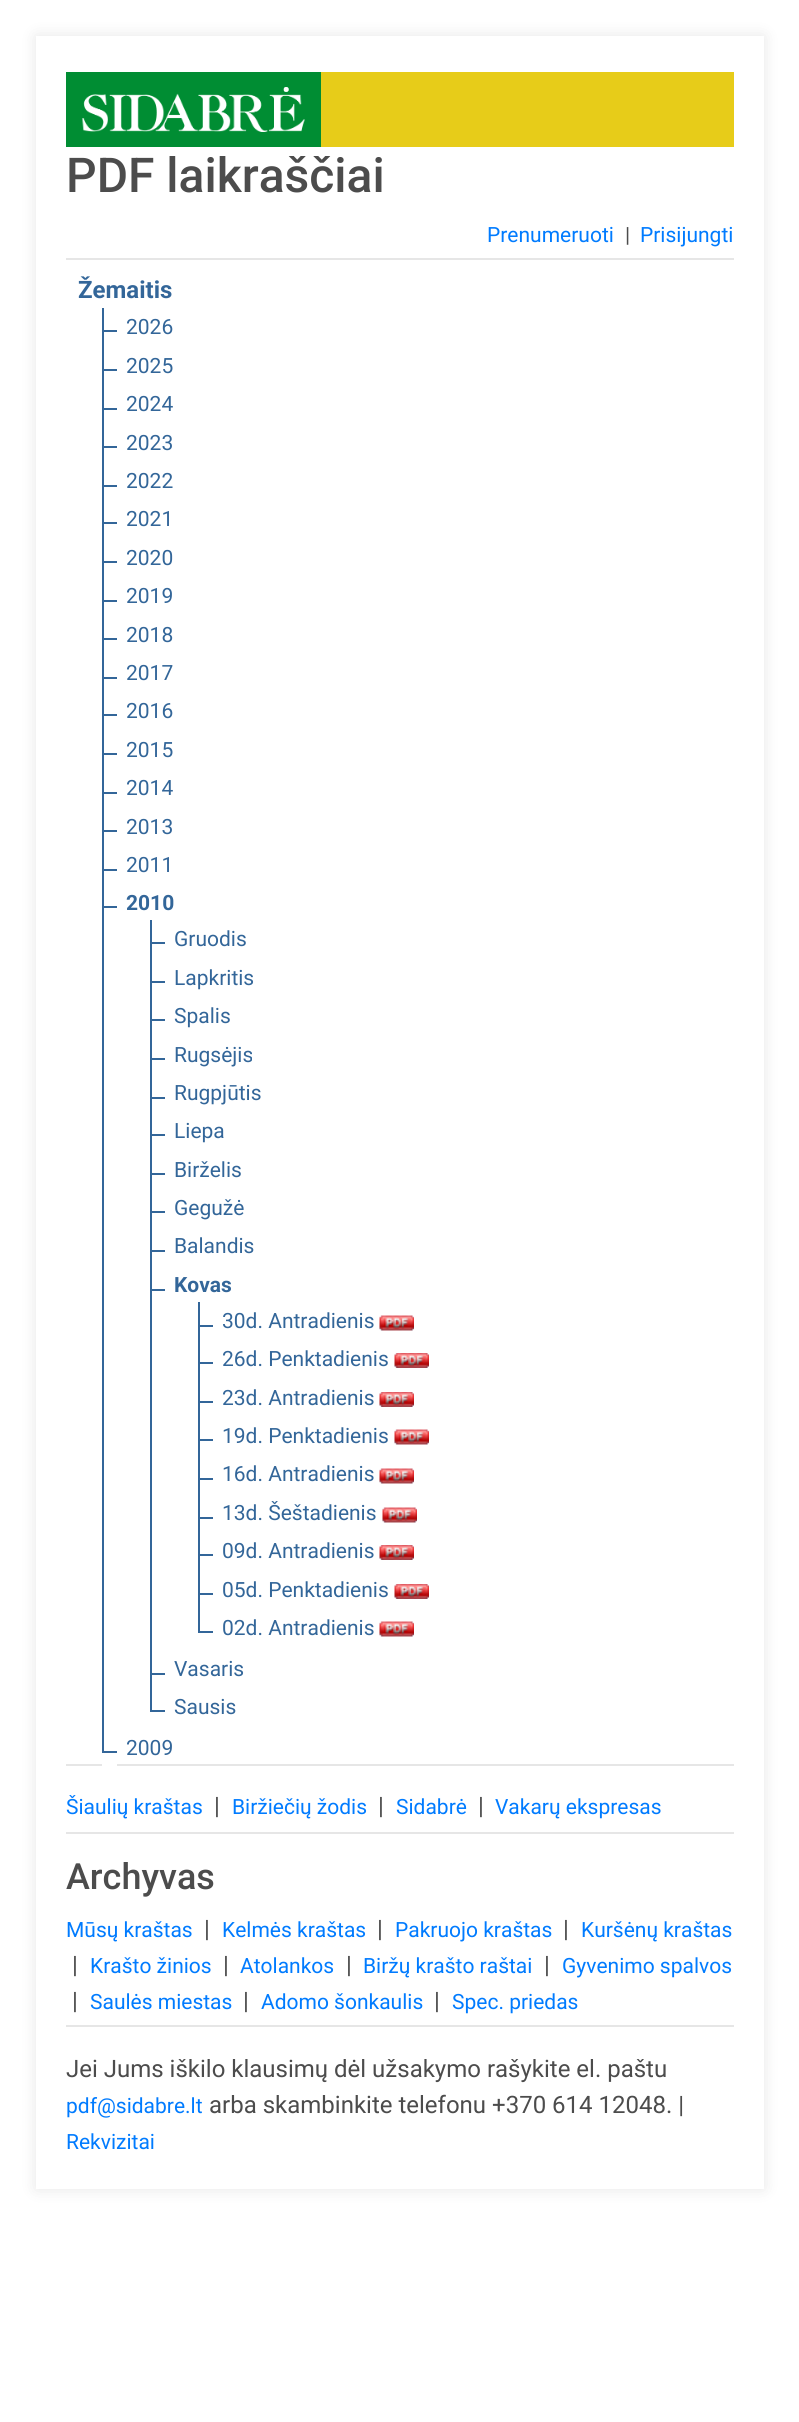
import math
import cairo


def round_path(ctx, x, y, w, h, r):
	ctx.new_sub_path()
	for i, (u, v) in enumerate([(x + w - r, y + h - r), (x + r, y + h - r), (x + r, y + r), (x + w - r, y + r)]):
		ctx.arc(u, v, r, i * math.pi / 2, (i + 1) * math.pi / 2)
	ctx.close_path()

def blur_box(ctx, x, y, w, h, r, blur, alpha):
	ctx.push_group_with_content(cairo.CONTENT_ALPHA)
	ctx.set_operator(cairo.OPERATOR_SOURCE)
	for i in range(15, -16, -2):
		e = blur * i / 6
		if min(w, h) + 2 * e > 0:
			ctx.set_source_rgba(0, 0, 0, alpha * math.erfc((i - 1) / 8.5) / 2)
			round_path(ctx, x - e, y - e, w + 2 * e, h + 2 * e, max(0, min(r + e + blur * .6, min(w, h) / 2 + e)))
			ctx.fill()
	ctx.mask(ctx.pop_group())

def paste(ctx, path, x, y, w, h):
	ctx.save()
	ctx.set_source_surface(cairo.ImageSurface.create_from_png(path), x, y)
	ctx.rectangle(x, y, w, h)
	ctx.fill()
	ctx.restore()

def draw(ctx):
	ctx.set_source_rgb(1, 1, 1)
	ctx.paint()
	ctx.save()
	ctx.set_fill_rule(cairo.FILL_RULE_EVEN_ODD)
	ctx.new_path()
	ctx.move_to(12, 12)
	ctx.line_to(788, 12)
	ctx.line_to(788, 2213)
	ctx.line_to(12, 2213)
	ctx.close_path()
	ctx.move_to(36, 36)
	ctx.line_to(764, 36)
	ctx.line_to(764, 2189)
	ctx.line_to(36, 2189)
	ctx.close_path()
	ctx.clip()
	ctx.set_source_rgb(0, 0, 0)
	blur_box(ctx, 36, 36, 728, 2153, 0, 7.5, 0.1)
	ctx.restore()
	ctx.set_source_rgb(0.906, 0.8, 0.098)
	ctx.rectangle(321, 72, 413, 75)
	ctx.fill()
	ctx.set_source_rgb(0, 0.553, 0.2)
	ctx.rectangle(66, 72, 255, 75)
	ctx.fill()
	paste(ctx, 'media/1.png', 82, 87, 223, 45)
	ctx.select_font_face('Roboto Medium')
	ctx.set_font_size(48)
	ctx.set_source_rgb(0.298, 0.298, 0.298)
	ctx.move_to(66, 192)
	ctx.show_text('PDF laikraščiai')
	ctx.select_font_face('Roboto')
	ctx.set_font_size(21)
	ctx.set_source_rgb(0, 0.482, 1)
	ctx.move_to(487, 242)
	ctx.show_text('Prenumeruoti')
	ctx.set_source_rgb(0.298, 0.298, 0.298)
	ctx.move_to(625, 242)
	ctx.show_text('|')
	ctx.set_source_rgb(0, 0.482, 1)
	ctx.move_to(640, 242)
	ctx.show_text('Prisijungti')
	ctx.set_source_rgb(0.902, 0.902, 0.902)
	ctx.rectangle(66, 258, 668, 2)
	ctx.fill()
	ctx.select_font_face('Roboto', cairo.FONT_SLANT_NORMAL, cairo.FONT_WEIGHT_BOLD)
	ctx.set_font_size(24)
	ctx.set_source_rgb(0.2, 0.4, 0.6)
	ctx.move_to(78, 298)
	ctx.show_text('Žemaitis')
	ctx.rectangle(102, 308, 2, 1443)
	ctx.fill()
	ctx.rectangle(102, 330, 15, 2)
	ctx.fill()
	ctx.select_font_face('Roboto')
	ctx.set_font_size(21)
	ctx.move_to(126, 334)
	ctx.show_text('2026')
	ctx.rectangle(102, 369, 15, 2)
	ctx.fill()
	ctx.move_to(126, 373)
	ctx.show_text('2025')
	ctx.rectangle(102, 408, 15, 2)
	ctx.fill()
	ctx.move_to(126, 411)
	ctx.show_text('2024')
	ctx.rectangle(102, 446, 15, 2)
	ctx.fill()
	ctx.move_to(126, 450)
	ctx.show_text('2023')
	ctx.rectangle(102, 485, 15, 2)
	ctx.fill()
	ctx.move_to(126, 488)
	ctx.show_text('2022')
	ctx.rectangle(102, 522, 15, 2)
	ctx.fill()
	ctx.move_to(126, 526)
	ctx.show_text('2021')
	ctx.rectangle(102, 561, 15, 2)
	ctx.fill()
	ctx.move_to(126, 565)
	ctx.show_text('2020')
	ctx.rectangle(102, 600, 15, 2)
	ctx.fill()
	ctx.move_to(126, 603)
	ctx.show_text('2019')
	ctx.rectangle(102, 638, 15, 2)
	ctx.fill()
	ctx.move_to(126, 642)
	ctx.show_text('2018')
	ctx.rectangle(102, 677, 15, 2)
	ctx.fill()
	ctx.move_to(126, 680)
	ctx.show_text('2017')
	ctx.rectangle(102, 714, 15, 2)
	ctx.fill()
	ctx.move_to(126, 718)
	ctx.show_text('2016')
	ctx.rectangle(102, 753, 15, 2)
	ctx.fill()
	ctx.move_to(126, 757)
	ctx.show_text('2015')
	ctx.rectangle(102, 792, 15, 2)
	ctx.fill()
	ctx.move_to(126, 795)
	ctx.show_text('2014')
	ctx.rectangle(102, 830, 15, 2)
	ctx.fill()
	ctx.move_to(126, 834)
	ctx.show_text('2013')
	ctx.rectangle(102, 869, 15, 2)
	ctx.fill()
	ctx.move_to(126, 872)
	ctx.show_text('2011')
	ctx.rectangle(102, 906, 15, 2)
	ctx.fill()
	ctx.select_font_face('Roboto', cairo.FONT_SLANT_NORMAL, cairo.FONT_WEIGHT_BOLD)
	ctx.move_to(126, 910)
	ctx.show_text('2010')
	ctx.rectangle(150, 920, 2, 790)
	ctx.fill()
	ctx.rectangle(150, 942, 15, 2)
	ctx.fill()
	ctx.select_font_face('Roboto')
	ctx.move_to(174, 946)
	ctx.show_text('Gruodis')
	ctx.rectangle(150, 981, 15, 2)
	ctx.fill()
	ctx.move_to(174, 985)
	ctx.show_text('Lapkritis')
	ctx.rectangle(150, 1019, 15, 2)
	ctx.fill()
	ctx.move_to(174, 1023)
	ctx.show_text('Spalis')
	ctx.rectangle(150, 1058, 15, 2)
	ctx.fill()
	ctx.move_to(174, 1062)
	ctx.show_text('Rugsėjis')
	ctx.rectangle(150, 1097, 15, 2)
	ctx.fill()
	ctx.move_to(174, 1100)
	ctx.show_text('Rugpjūtis')
	ctx.rectangle(150, 1134, 15, 2)
	ctx.fill()
	ctx.move_to(174, 1138)
	ctx.show_text('Liepa')
	ctx.rectangle(150, 1173, 15, 2)
	ctx.fill()
	ctx.move_to(174, 1177)
	ctx.show_text('Birželis')
	ctx.rectangle(150, 1211, 15, 2)
	ctx.fill()
	ctx.move_to(174, 1215)
	ctx.show_text('Gegužė')
	ctx.rectangle(150, 1250, 15, 2)
	ctx.fill()
	ctx.move_to(174, 1253)
	ctx.show_text('Balandis')
	ctx.rectangle(150, 1289, 15, 2)
	ctx.fill()
	ctx.select_font_face('Roboto', cairo.FONT_SLANT_NORMAL, cairo.FONT_WEIGHT_BOLD)
	ctx.move_to(174, 1292)
	ctx.show_text('Kovas')
	ctx.rectangle(198, 1302, 2, 329)
	ctx.fill()
	ctx.rectangle(198, 1325, 15, 2)
	ctx.fill()
	ctx.select_font_face('Roboto')
	ctx.move_to(222, 1328)
	ctx.show_text('30d. Antradienis')
	paste(ctx, 'media/2.png', 379, 1315, 35, 16)
	ctx.rectangle(198, 1362, 15, 2)
	ctx.fill()
	ctx.move_to(222, 1366)
	ctx.show_text('26d. Penktadienis')
	paste(ctx, 'media/3.png', 394, 1353, 35, 15)
	ctx.rectangle(198, 1401, 15, 2)
	ctx.fill()
	ctx.move_to(222, 1405)
	ctx.show_text('23d. Antradienis')
	paste(ctx, 'media/3.png', 379, 1392, 35, 15)
	ctx.rectangle(198, 1439, 15, 2)
	ctx.fill()
	ctx.move_to(222, 1443)
	ctx.show_text('19d. Penktadienis')
	paste(ctx, 'media/2.png', 394, 1429, 35, 16)
	ctx.rectangle(198, 1478, 15, 2)
	ctx.fill()
	ctx.move_to(222, 1481)
	ctx.show_text('16d. Antradienis')
	paste(ctx, 'media/2.png', 379, 1468, 35, 16)
	ctx.rectangle(198, 1517, 15, 2)
	ctx.fill()
	ctx.move_to(222, 1520)
	ctx.show_text('13d. Šeštadienis')
	paste(ctx, 'media/2.png', 382, 1507, 35, 16)
	ctx.rectangle(198, 1554, 15, 2)
	ctx.fill()
	ctx.move_to(222, 1558)
	ctx.show_text('09d. Antradienis')
	paste(ctx, 'media/3.png', 379, 1545, 35, 15)
	ctx.rectangle(198, 1593, 15, 2)
	ctx.fill()
	ctx.move_to(222, 1597)
	ctx.show_text('05d. Penktadienis')
	paste(ctx, 'media/3.png', 394, 1584, 35, 15)
	ctx.rectangle(198, 1631, 15, 2)
	ctx.fill()
	ctx.move_to(222, 1635)
	ctx.show_text('02d. Antradienis')
	paste(ctx, 'media/2.png', 379, 1621, 35, 16)
	ctx.rectangle(150, 1673, 15, 2)
	ctx.fill()
	ctx.move_to(174, 1676)
	ctx.show_text('Vasaris')
	ctx.rectangle(150, 1710, 15, 2)
	ctx.fill()
	ctx.move_to(174, 1714)
	ctx.show_text('Sausis')
	ctx.move_to(126, 1755)
	ctx.show_text('2009')
	ctx.set_source_rgb(0.902, 0.902, 0.902)
	ctx.rectangle(66, 1764, 668, 2)
	ctx.fill()
	ctx.set_source_rgb(1, 1, 1)
	ctx.rectangle(102, 1764, 15, 2)
	ctx.fill()
	ctx.set_source_rgb(0.2, 0.4, 0.6)
	ctx.rectangle(102, 1751, 15, 2)
	ctx.fill()
	ctx.set_source_rgb(0, 0.482, 1)
	ctx.move_to(66, 1814)
	ctx.show_text('Šiaulių kraštas')
	ctx.set_font_size(24)
	ctx.set_source_rgb(0.298, 0.298, 0.298)
	ctx.move_to(214, 1814)
	ctx.show_text('|')
	ctx.set_font_size(21)
	ctx.set_source_rgb(0, 0.482, 1)
	ctx.move_to(232, 1814)
	ctx.show_text('Biržiečių žodis')
	ctx.set_font_size(24)
	ctx.set_source_rgb(0.298, 0.298, 0.298)
	ctx.move_to(378, 1814)
	ctx.show_text('|')
	ctx.set_font_size(21)
	ctx.set_source_rgb(0, 0.482, 1)
	ctx.move_to(396, 1814)
	ctx.show_text('Sidabrė')
	ctx.set_font_size(24)
	ctx.set_source_rgb(0.298, 0.298, 0.298)
	ctx.move_to(478, 1814)
	ctx.show_text('|')
	ctx.set_font_size(21)
	ctx.set_source_rgb(0, 0.482, 1)
	ctx.move_to(495, 1814)
	ctx.show_text('Vakarų ekspresas')
	ctx.set_source_rgb(0.902, 0.902, 0.902)
	ctx.rectangle(66, 1832, 668, 2)
	ctx.fill()
	ctx.select_font_face('Roboto Medium')
	ctx.set_font_size(36)
	ctx.set_source_rgb(0.298, 0.298, 0.298)
	ctx.move_to(66, 1889)
	ctx.show_text('Archyvas')
	ctx.select_font_face('Roboto')
	ctx.set_font_size(21)
	ctx.set_source_rgb(0, 0.482, 1)
	ctx.move_to(66, 1937)
	ctx.show_text('Mūsų kraštas')
	ctx.set_font_size(24)
	ctx.set_source_rgb(0.298, 0.298, 0.298)
	ctx.move_to(204, 1937)
	ctx.show_text('|')
	ctx.set_font_size(21)
	ctx.set_source_rgb(0, 0.482, 1)
	ctx.move_to(222, 1937)
	ctx.show_text('Kelmės kraštas')
	ctx.set_font_size(24)
	ctx.set_source_rgb(0.298, 0.298, 0.298)
	ctx.move_to(377, 1937)
	ctx.show_text('|')
	ctx.set_font_size(21)
	ctx.set_source_rgb(0, 0.482, 1)
	ctx.move_to(395, 1937)
	ctx.show_text('Pakruojo kraštas')
	ctx.set_font_size(24)
	ctx.set_source_rgb(0.298, 0.298, 0.298)
	ctx.move_to(563, 1937)
	ctx.show_text('|')
	ctx.set_font_size(21)
	ctx.set_source_rgb(0, 0.482, 1)
	ctx.move_to(581, 1937)
	ctx.show_text('Kuršėnų kraštas')
	ctx.set_font_size(24)
	ctx.set_source_rgb(0.298, 0.298, 0.298)
	ctx.move_to(72, 1973)
	ctx.show_text('|')
	ctx.set_font_size(21)
	ctx.set_source_rgb(0, 0.482, 1)
	ctx.move_to(90, 1973)
	ctx.show_text('Krašto žinios')
	ctx.set_font_size(24)
	ctx.set_source_rgb(0.298, 0.298, 0.298)
	ctx.move_to(223, 1973)
	ctx.show_text('|')
	ctx.set_font_size(21)
	ctx.set_source_rgb(0, 0.482, 1)
	ctx.move_to(240, 1973)
	ctx.show_text('Atolankos')
	ctx.set_font_size(24)
	ctx.set_source_rgb(0.298, 0.298, 0.298)
	ctx.move_to(346, 1973)
	ctx.show_text('|')
	ctx.set_font_size(21)
	ctx.set_source_rgb(0, 0.482, 1)
	ctx.move_to(363, 1973)
	ctx.show_text('Biržų krašto raštai')
	ctx.set_font_size(24)
	ctx.set_source_rgb(0.298, 0.298, 0.298)
	ctx.move_to(544, 1973)
	ctx.show_text('|')
	ctx.set_font_size(21)
	ctx.set_source_rgb(0, 0.482, 1)
	ctx.move_to(562, 1973)
	ctx.show_text('Gyvenimo spalvos')
	ctx.set_font_size(24)
	ctx.set_source_rgb(0.298, 0.298, 0.298)
	ctx.move_to(72, 2009)
	ctx.show_text('|')
	ctx.set_font_size(21)
	ctx.set_source_rgb(0, 0.482, 1)
	ctx.move_to(90, 2009)
	ctx.show_text('Saulės miestas')
	ctx.set_font_size(24)
	ctx.set_source_rgb(0.298, 0.298, 0.298)
	ctx.move_to(243, 2009)
	ctx.show_text('|')
	ctx.set_font_size(21)
	ctx.set_source_rgb(0, 0.482, 1)
	ctx.move_to(261, 2009)
	ctx.show_text('Adomo šonkaulis')
	ctx.set_font_size(24)
	ctx.set_source_rgb(0.298, 0.298, 0.298)
	ctx.move_to(434, 2009)
	ctx.show_text('|')
	ctx.set_font_size(21)
	ctx.set_source_rgb(0, 0.482, 1)
	ctx.move_to(452, 2009)
	ctx.show_text('Spec. priedas')
	ctx.set_source_rgb(0.902, 0.902, 0.902)
	ctx.rectangle(66, 2025, 668, 2)
	ctx.fill()
	ctx.set_font_size(24)
	ctx.set_source_rgb(0.298, 0.298, 0.298)
	ctx.move_to(66, 2077)
	ctx.show_text('Jei Jums iškilo klausimų dėl užsakymo rašykite el. paštu')
	ctx.set_font_size(21)
	ctx.set_source_rgb(0, 0.482, 1)
	ctx.move_to(66, 2113)
	ctx.show_text('pdf@sidabre.lt')
	ctx.set_font_size(24)
	ctx.set_source_rgb(0.298, 0.298, 0.298)
	ctx.move_to(209, 2113)
	ctx.show_text('arba skambinkite telefonu +370 614 12048. |')
	ctx.set_font_size(21)
	ctx.set_source_rgb(0, 0.482, 1)
	ctx.move_to(66, 2149)
	ctx.show_text('Rekvizitai')


surface = cairo.ImageSurface(cairo.FORMAT_RGB24, 799, 2422)
ctx = cairo.Context(surface)
options = cairo.FontOptions()
options.set_hint_metrics(cairo.HINT_METRICS_OFF)
options.set_hint_style(cairo.HINT_STYLE_NONE)
ctx.set_font_options(options)
ctx.set_miter_limit(4)
draw(ctx)
surface.write_to_png('image.png')
